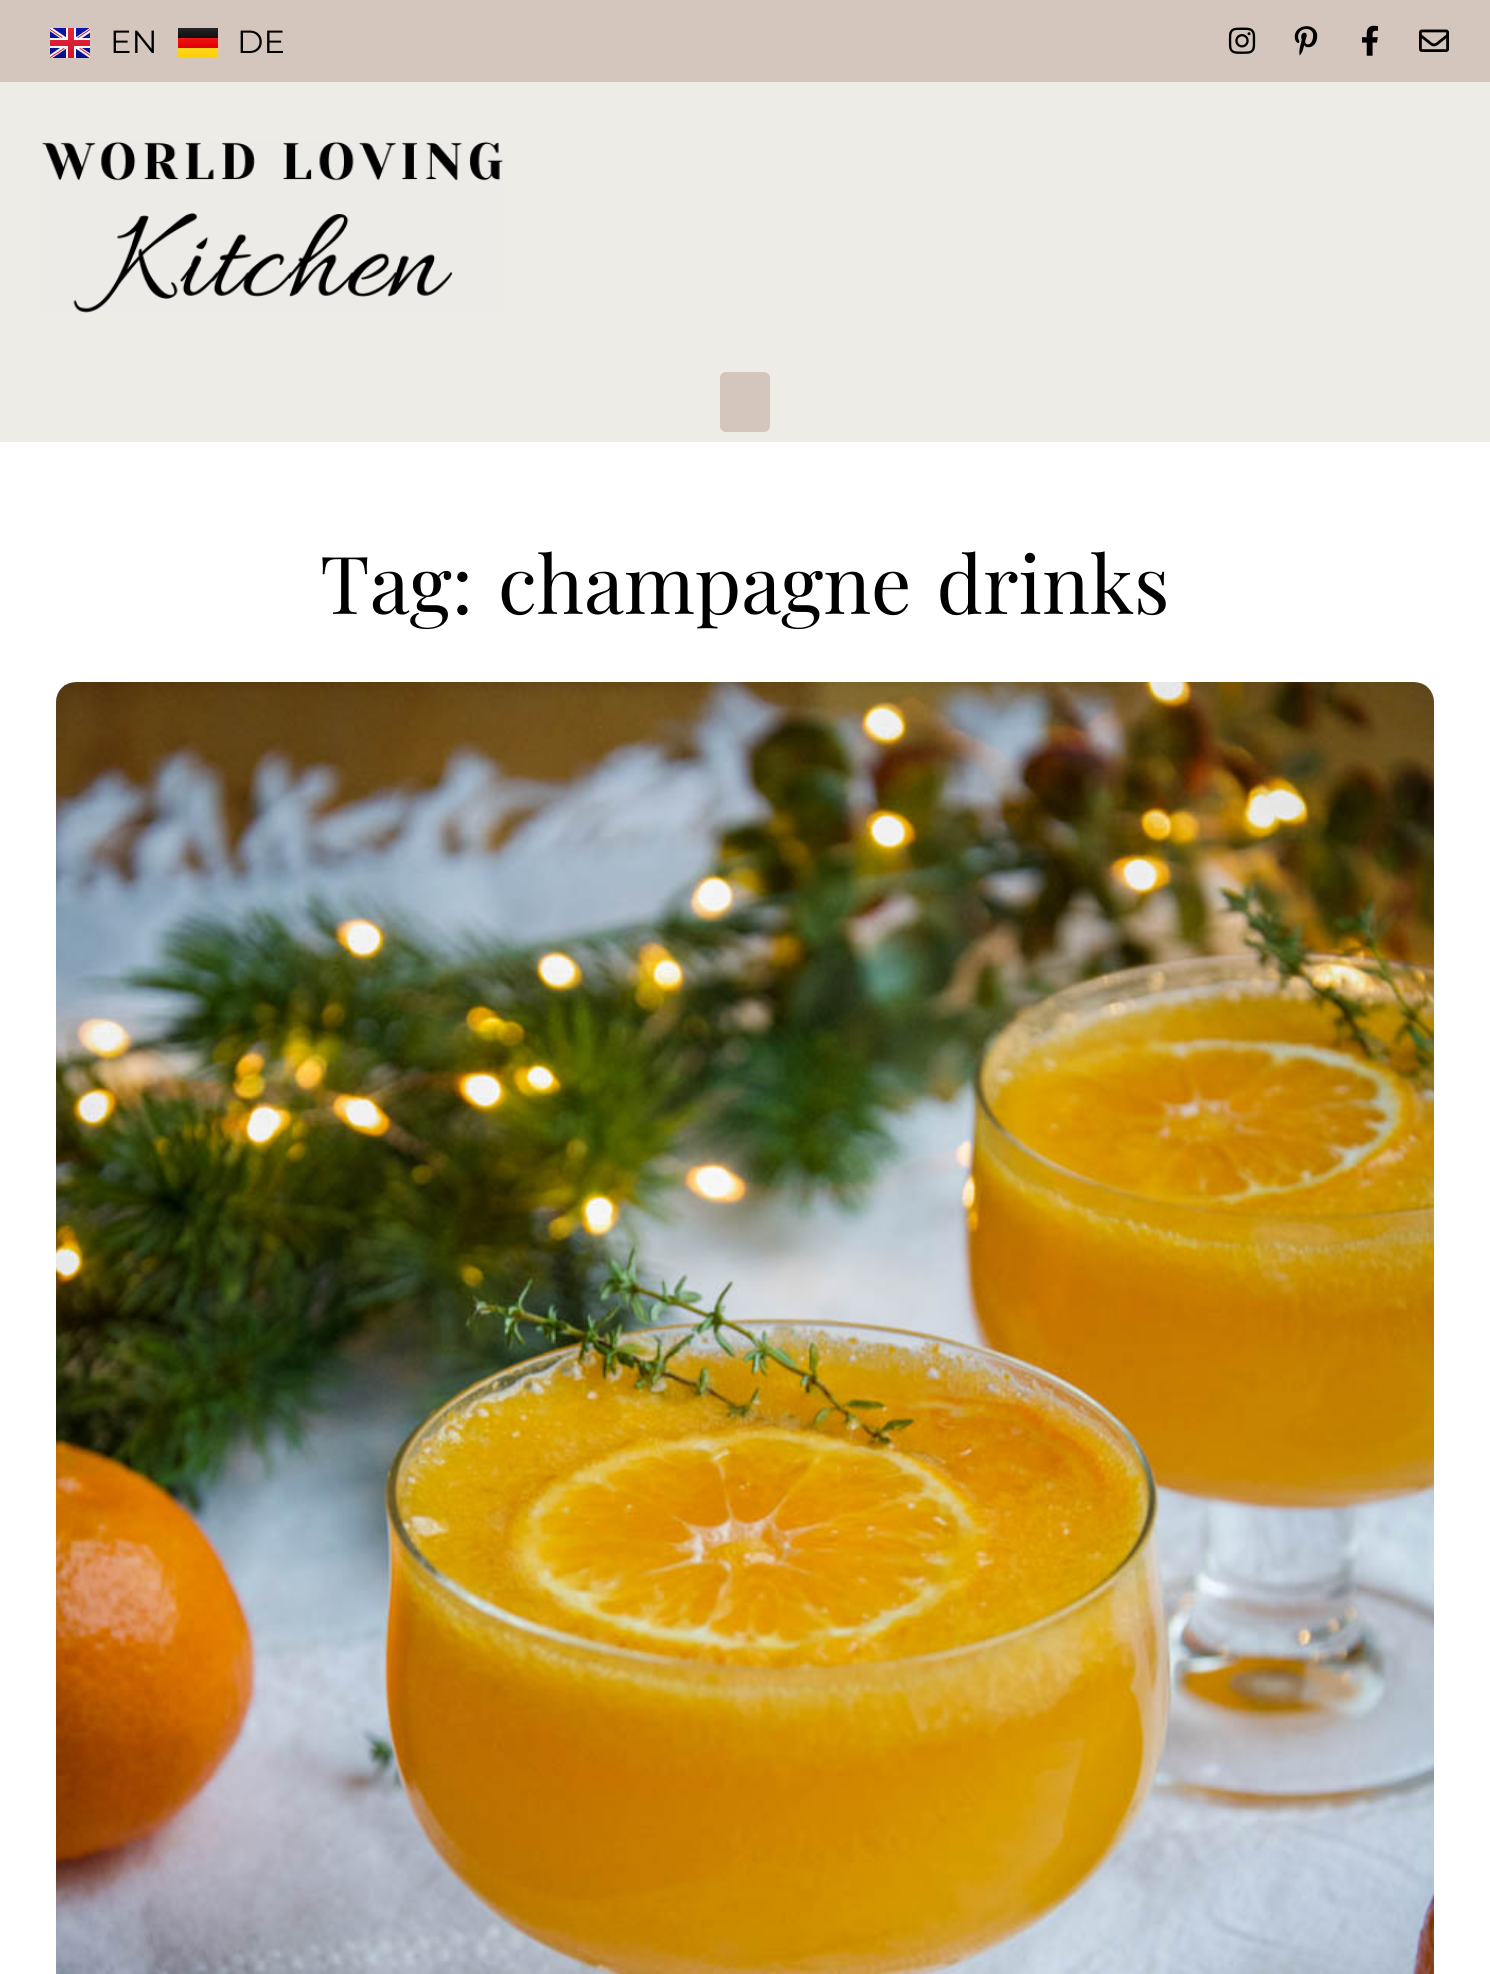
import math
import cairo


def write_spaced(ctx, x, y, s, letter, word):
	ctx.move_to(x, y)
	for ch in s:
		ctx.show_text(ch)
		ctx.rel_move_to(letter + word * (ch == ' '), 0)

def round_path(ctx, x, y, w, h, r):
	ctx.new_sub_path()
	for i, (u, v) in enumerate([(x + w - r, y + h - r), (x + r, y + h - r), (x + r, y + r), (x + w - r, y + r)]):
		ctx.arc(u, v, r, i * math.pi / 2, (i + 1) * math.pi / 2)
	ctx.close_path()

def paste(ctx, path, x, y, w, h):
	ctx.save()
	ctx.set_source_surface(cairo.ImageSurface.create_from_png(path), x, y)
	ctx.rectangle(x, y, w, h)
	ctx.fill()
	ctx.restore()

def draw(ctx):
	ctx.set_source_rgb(1, 1, 1)
	ctx.paint()
	ctx.set_source_rgb(0.831, 0.776, 0.741)
	ctx.rectangle(0, 0, 1490, 82)
	ctx.fill()
	paste(ctx, 'media/1.png', 50, 28, 40, 30)
	ctx.select_font_face('Montserrat')
	ctx.set_font_size(32)
	ctx.set_source_rgb(0, 0, 0)
	ctx.move_to(110, 53)
	ctx.show_text('EN')
	gradient = cairo.LinearGradient(197, 28, 197, 38)
	gradient.add_color_stop_rgba(0, 0.149, 0.149, 0.149, 1)
	gradient.add_color_stop_rgba(1, 0.051, 0.051, 0.051, 1)
	ctx.set_source(gradient)
	ctx.rectangle(178, 28, 40, 10)
	ctx.fill()
	gradient = cairo.LinearGradient(197, 38, 197, 48)
	gradient.add_color_stop_rgba(0, 0.941, 0.082, 0.082, 1)
	gradient.add_color_stop_rgba(1, 0.871, 0, 0, 1)
	ctx.set_source(gradient)
	ctx.rectangle(178, 38, 40, 10)
	ctx.fill()
	gradient = cairo.LinearGradient(197, 48, 197, 58)
	gradient.add_color_stop_rgba(0, 1, 0.835, 0.129, 1)
	gradient.add_color_stop_rgba(1, 1, 0.812, 0, 1)
	ctx.set_source(gradient)
	ctx.rectangle(178, 48, 40, 10)
	ctx.fill()
	ctx.set_source_rgb(0, 0, 0)
	ctx.move_to(237, 53)
	ctx.show_text('DE')
	paste(ctx, 'media/2.png', 1228, 27, 28, 27)
	paste(ctx, 'media/3.png', 1294, 26, 24, 30)
	paste(ctx, 'media/4.png', 1361, 25, 18, 31)
	paste(ctx, 'media/5.png', 1419, 29, 30, 23)
	ctx.set_source_rgb(0.929, 0.922, 0.906)
	ctx.rectangle(0, 82, 1490, 360)
	ctx.fill()
	paste(ctx, 'media/6.png', 41, 141, 462, 172)
	ctx.set_source_rgb(0.831, 0.776, 0.741)
	round_path(ctx, 720, 372, 50, 60, 6)
	ctx.fill()
	ctx.select_font_face('Playfair Display')
	ctx.set_font_size(80)
	ctx.set_source_rgb(0, 0, 0)
	write_spaced(ctx, 320, 614, 'Tag: champagne drinks', 0, 5)
	paste(ctx, 'media/7.png', 56, 682, 1378, 1292)


surface = cairo.ImageSurface(cairo.FORMAT_RGB24, 1490, 1974)
ctx = cairo.Context(surface)
options = cairo.FontOptions()
options.set_hint_metrics(cairo.HINT_METRICS_OFF)
options.set_hint_style(cairo.HINT_STYLE_NONE)
ctx.set_font_options(options)
ctx.set_miter_limit(4)
draw(ctx)
surface.write_to_png('image.png')
